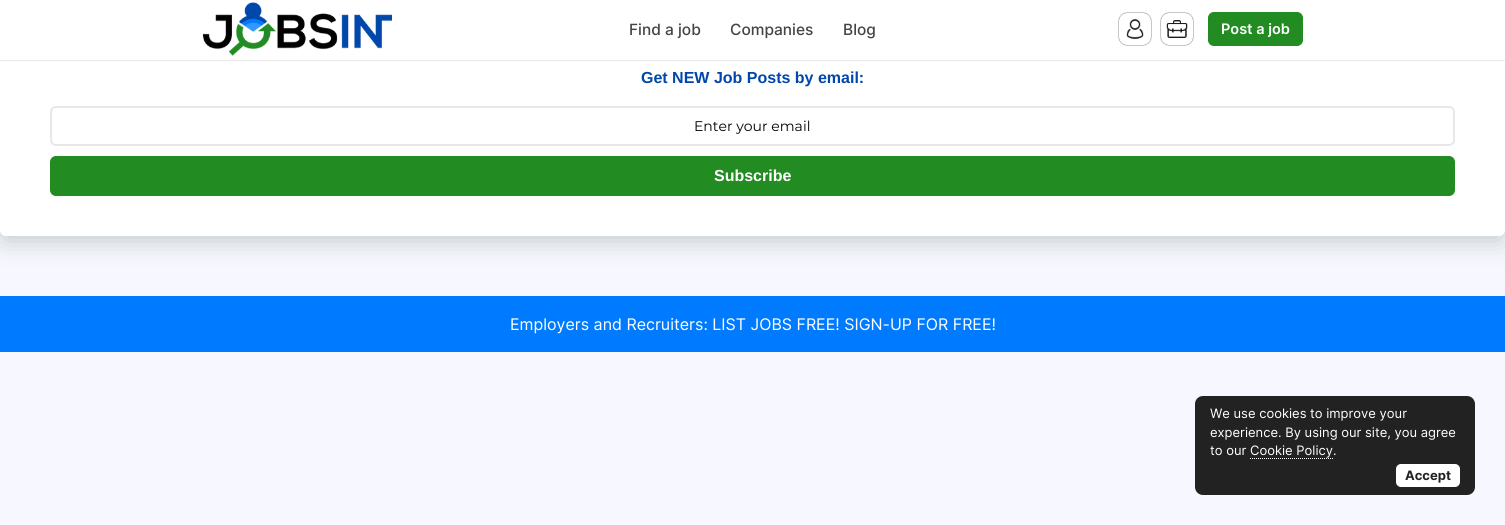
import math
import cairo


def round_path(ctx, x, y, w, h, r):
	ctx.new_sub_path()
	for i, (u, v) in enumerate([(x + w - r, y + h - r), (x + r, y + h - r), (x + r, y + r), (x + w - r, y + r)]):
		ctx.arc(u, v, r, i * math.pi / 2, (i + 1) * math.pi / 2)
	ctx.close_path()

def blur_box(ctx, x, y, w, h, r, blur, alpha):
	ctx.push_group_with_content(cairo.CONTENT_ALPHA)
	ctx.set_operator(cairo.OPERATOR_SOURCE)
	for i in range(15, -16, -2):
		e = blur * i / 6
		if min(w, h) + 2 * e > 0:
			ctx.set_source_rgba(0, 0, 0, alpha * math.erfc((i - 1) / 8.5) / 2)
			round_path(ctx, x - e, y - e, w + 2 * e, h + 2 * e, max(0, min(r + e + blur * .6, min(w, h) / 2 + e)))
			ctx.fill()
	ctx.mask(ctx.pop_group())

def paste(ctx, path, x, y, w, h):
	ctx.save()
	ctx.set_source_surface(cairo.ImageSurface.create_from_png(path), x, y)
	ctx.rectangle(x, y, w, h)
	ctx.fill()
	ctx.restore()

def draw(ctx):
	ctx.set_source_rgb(0.965, 0.969, 1)
	ctx.paint()
	ctx.set_source_rgb(0.133, 0.235, 0.184)
	blur_box(ctx, 0, 35, 1505, 206, 6, 12.5, 0.25)
	ctx.set_source_rgb(1, 1, 1)
	round_path(ctx, 0, 30, 1505, 206, 6)
	ctx.fill()
	ctx.set_source_rgb(0, 0, 0)
	blur_box(ctx, 0, 0, 1505, 60, 0, 1, 0.2)
	ctx.set_source_rgb(1, 1, 1)
	ctx.rectangle(0, 0, 1505, 60)
	ctx.fill()
	paste(ctx, 'media/1.png', 203, 2, 189, 54)
	ctx.select_font_face('Inter Medium')
	ctx.set_font_size(15.5)
	ctx.set_source_rgb(0.267, 0.267, 0.267)
	for x, y, s in [
		(629, 35, 'Find a job'),
		(730, 35, 'Companies'),
		(843, 35, 'Blog'),
	]:
		ctx.move_to(x, y)
		ctx.show_text(s)
	ctx.set_source_rgb(0, 0, 0)
	blur_box(ctx, 1119, 13, 32, 32, 8, 0.5, 0.9)
	ctx.set_source_rgb(1, 1, 1)
	round_path(ctx, 1119, 13, 32, 32, 8)
	ctx.fill()
	paste(ctx, 'media/2.png', 1126, 19, 18, 20)
	ctx.set_source_rgb(0, 0, 0)
	blur_box(ctx, 1161, 13, 32, 32, 8, 0.5, 0.9)
	ctx.set_source_rgb(1, 1, 1)
	round_path(ctx, 1161, 13, 32, 32, 8)
	ctx.fill()
	paste(ctx, 'media/3.png', 1166, 20, 22, 18)
	ctx.set_source_rgb(0.133, 0.545, 0.133)
	round_path(ctx, 1208.5, 12.5, 94, 33, 5.5)
	ctx.fill_preserve()
	ctx.set_line_width(1)
	ctx.stroke()
	ctx.select_font_face('Inter SemiBold')
	ctx.set_font_size(14.5)
	ctx.set_source_rgb(1, 1, 1)
	ctx.move_to(1221, 34)
	ctx.show_text('Post a job')
	ctx.select_font_face('Liberation Sans', cairo.FONT_SLANT_NORMAL, cairo.FONT_WEIGHT_BOLD)
	ctx.set_font_size(16)
	ctx.set_source_rgb(0, 0.278, 0.671)
	ctx.move_to(641, 83)
	ctx.show_text('Get NEW Job Posts by email:')
	round_path(ctx, 51, 107, 1403, 38, 5)
	ctx.set_source_rgb(0.914, 0.91, 0.91)
	ctx.set_line_width(2)
	ctx.stroke()
	ctx.select_font_face('Montserrat')
	ctx.set_font_size(14)
	ctx.set_source_rgb(0, 0, 0)
	ctx.move_to(694, 131)
	ctx.show_text('Enter your email')
	ctx.set_source_rgb(0.133, 0.545, 0.133)
	round_path(ctx, 50, 156, 1405, 40, 6)
	ctx.fill()
	ctx.select_font_face('Liberation Sans', cairo.FONT_SLANT_NORMAL, cairo.FONT_WEIGHT_BOLD)
	ctx.set_font_size(16)
	ctx.set_source_rgb(1, 1, 1)
	ctx.move_to(714, 181)
	ctx.show_text('Subscribe')
	ctx.set_source_rgb(0, 0.482, 1)
	ctx.rectangle(0, 296, 1505, 56)
	ctx.fill()
	ctx.select_font_face('Inter')
	ctx.set_source_rgb(1, 1, 1)
	ctx.move_to(510, 330)
	ctx.show_text('Employers and Recruiters: LIST JOBS FREE! SIGN-UP FOR FREE!')
	ctx.set_source_rgb(0.133, 0.133, 0.133)
	round_path(ctx, 1195, 396, 280, 99, 8)
	ctx.fill()
	ctx.set_font_size(13)
	ctx.set_source_rgb(1, 1, 1)
	for x, y, s in [
		(1210, 418, 'We use cookies to improve your'),
		(1210, 437, 'experience. By using our site, you agree'),
		(1210, 455, 'to our Cookie Policy.'),
	]:
		ctx.move_to(x, y)
		ctx.show_text(s)
	ctx.new_path()
	ctx.move_to(1250, 458.5)
	ctx.line_to(1333, 458.5)
	ctx.set_line_width(1)
	ctx.set_dash([1, 1])
	ctx.stroke()
	round_path(ctx, 1396, 464, 64, 23, 5)
	ctx.fill()
	ctx.select_font_face('Inter', cairo.FONT_SLANT_NORMAL, cairo.FONT_WEIGHT_BOLD)
	ctx.set_source_rgb(0.133, 0.133, 0.133)
	ctx.move_to(1405, 480)
	ctx.show_text('Accept')


surface = cairo.ImageSurface(cairo.FORMAT_RGB24, 1505, 525)
ctx = cairo.Context(surface)
options = cairo.FontOptions()
options.set_hint_metrics(cairo.HINT_METRICS_OFF)
options.set_hint_style(cairo.HINT_STYLE_NONE)
ctx.set_font_options(options)
ctx.set_miter_limit(4)
draw(ctx)
surface.write_to_png('image.png')
